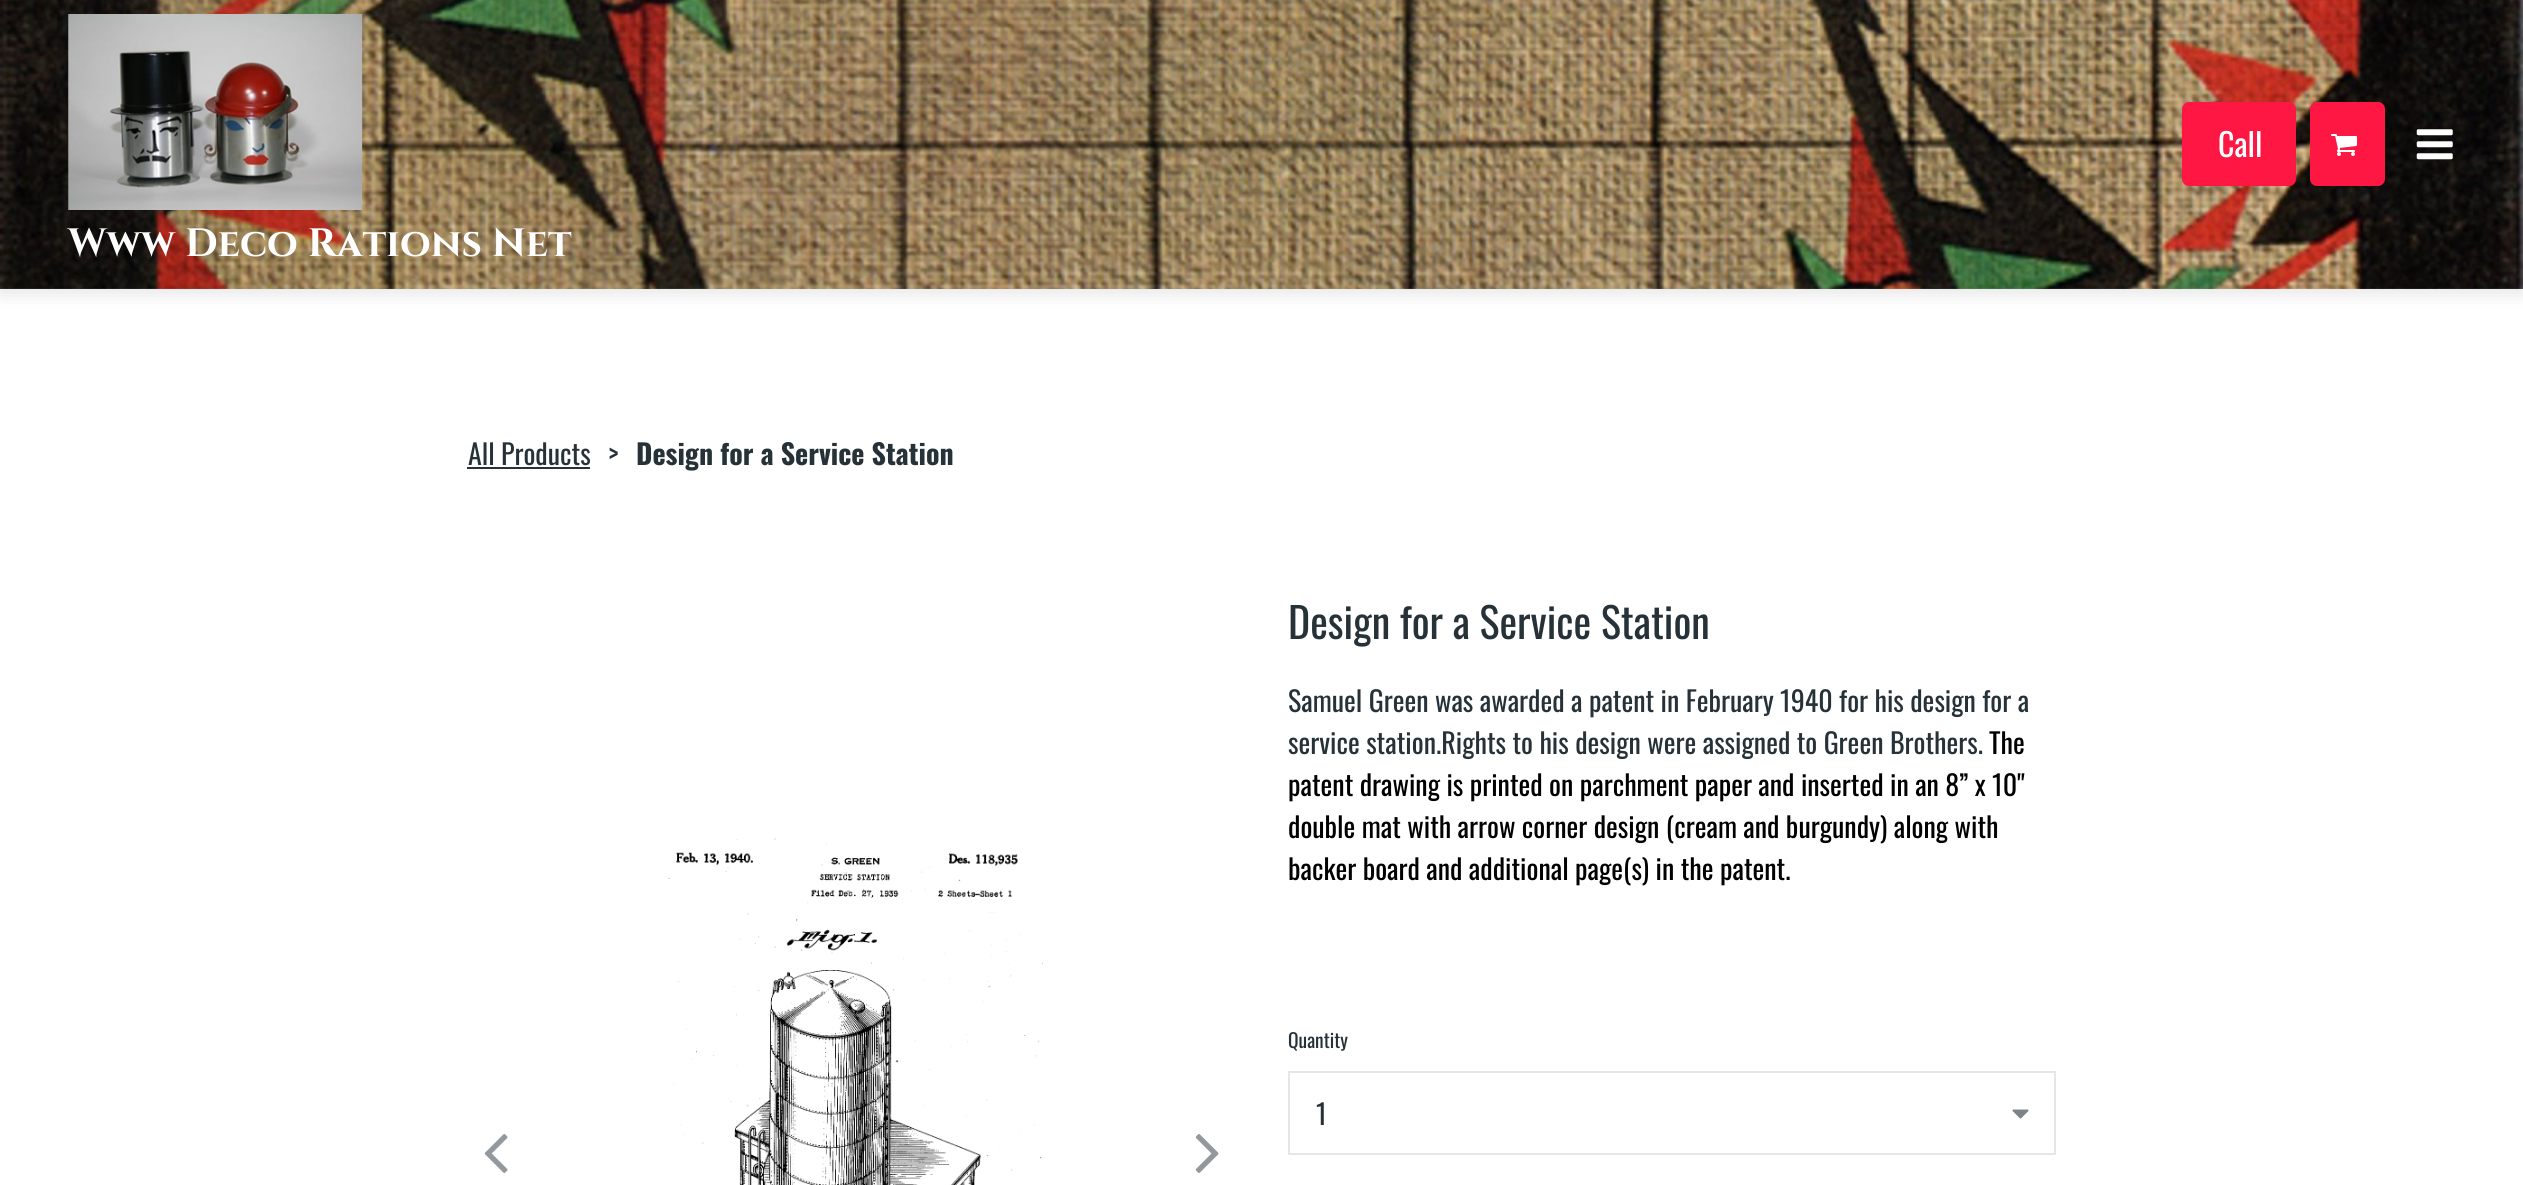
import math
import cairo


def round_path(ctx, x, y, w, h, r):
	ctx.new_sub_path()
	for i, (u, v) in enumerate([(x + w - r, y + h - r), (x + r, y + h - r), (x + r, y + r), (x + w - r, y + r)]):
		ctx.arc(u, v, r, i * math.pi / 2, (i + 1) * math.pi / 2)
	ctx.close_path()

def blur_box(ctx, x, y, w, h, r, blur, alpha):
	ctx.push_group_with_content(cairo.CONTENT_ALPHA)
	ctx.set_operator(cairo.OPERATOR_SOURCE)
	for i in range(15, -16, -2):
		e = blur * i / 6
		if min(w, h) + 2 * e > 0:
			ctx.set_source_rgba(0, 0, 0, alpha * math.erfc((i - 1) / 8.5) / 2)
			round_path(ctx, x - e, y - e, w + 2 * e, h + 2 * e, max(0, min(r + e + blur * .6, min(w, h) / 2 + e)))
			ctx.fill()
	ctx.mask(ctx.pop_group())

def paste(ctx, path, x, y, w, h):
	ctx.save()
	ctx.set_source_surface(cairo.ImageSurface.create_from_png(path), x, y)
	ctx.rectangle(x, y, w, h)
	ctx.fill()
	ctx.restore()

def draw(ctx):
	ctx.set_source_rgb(1, 1, 1)
	ctx.paint()
	paste(ctx, 'media/5.png', 0, 287, 2523, 2)
	ctx.set_source_rgb(0, 0, 0)
	blur_box(ctx, 0, 4, 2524, 288, 0, 10.5, 0.12)
	paste(ctx, 'media/1.png', 0, 0, 2523, 289)
	ctx.set_source_rgb(1, 0.09, 0.267)
	round_path(ctx, 2182, 102, 114, 84, 7)
	ctx.fill()
	ctx.select_font_face('Oswald')
	ctx.set_font_size(32)
	ctx.set_source_rgb(1, 1, 1)
	ctx.move_to(2218, 157)
	ctx.show_text('Call')
	ctx.set_source_rgb(1, 0.09, 0.267)
	round_path(ctx, 2310, 102, 75, 84, 7)
	ctx.fill()
	paste(ctx, 'media/2.png', 2331, 134, 26, 22)
	paste(ctx, 'media/3.png', 2416, 129, 37, 31)
	paste(ctx, 'media/4.png', 68, 14, 295, 196)
	ctx.select_font_face('Cinzel', cairo.FONT_SLANT_NORMAL, cairo.FONT_WEIGHT_BOLD)
	ctx.set_font_size(39.5)
	ctx.set_source_rgb(1, 1, 1)
	ctx.move_to(68, 256)
	ctx.show_text('Www Deco Rations Net')
	ctx.select_font_face('Oswald')
	ctx.set_font_size(28)
	ctx.set_source_rgb(0.149, 0.196, 0.22)
	ctx.move_to(468, 465)
	ctx.show_text('All Products')
	ctx.rectangle(467, 467, 123, 2)
	ctx.fill()
	ctx.move_to(608, 465)
	ctx.show_text('>')
	ctx.select_font_face('Oswald', cairo.FONT_SLANT_NORMAL, cairo.FONT_WEIGHT_BOLD)
	ctx.move_to(636, 465)
	ctx.show_text('Design for a Service Station')
	paste(ctx, 'media/6.png', 484, 1134, 24, 39)
	paste(ctx, 'media/7.png', 668, 838, 377, 347)
	paste(ctx, 'media/8.png', 1195, 1134, 24, 39)
	ctx.select_font_face('Oswald')
	ctx.set_font_size(42)
	ctx.move_to(1288, 639)
	ctx.show_text('Design for a Service Station')
	ctx.set_font_size(28)
	ctx.move_to(1288, 712)
	ctx.show_text('Samuel Green was awarded a patent in February 1940 for his design for a')
	ctx.move_to(1288, 754)
	ctx.show_text('service station.Rights to his design were assigned to Green Brothers.')
	ctx.set_source_rgb(0, 0, 0)
	for x, y, s in [
		(1989, 754, 'The'),
		(1288, 796, 'patent drawing is printed on parchment paper and inserted in an 8” x 10"'),
		(1288, 838, 'double mat with arrow corner design (cream and burgundy) along with'),
		(1288, 880, 'backer board and additional page(s) in the patent.'),
	]:
		ctx.move_to(x, y)
		ctx.show_text(s)
	ctx.set_font_size(19.5)
	ctx.set_source_rgb(0.149, 0.196, 0.22)
	ctx.move_to(1288, 1048)
	ctx.show_text('Quantity')
	ctx.rectangle(1289, 1072, 766, 82)
	ctx.set_source_rgb(0.902, 0.902, 0.902)
	ctx.stroke()
	ctx.set_font_size(28)
	ctx.set_source_rgb(0.149, 0.196, 0.22)
	ctx.move_to(1316, 1125)
	ctx.show_text('1')
	paste(ctx, 'media/9.png', 2012, 1109, 17, 10)


surface = cairo.ImageSurface(cairo.FORMAT_RGB24, 2523, 1185)
ctx = cairo.Context(surface)
options = cairo.FontOptions()
options.set_hint_metrics(cairo.HINT_METRICS_OFF)
options.set_hint_style(cairo.HINT_STYLE_NONE)
ctx.set_font_options(options)
ctx.set_miter_limit(4)
draw(ctx)
surface.write_to_png('image.png')
